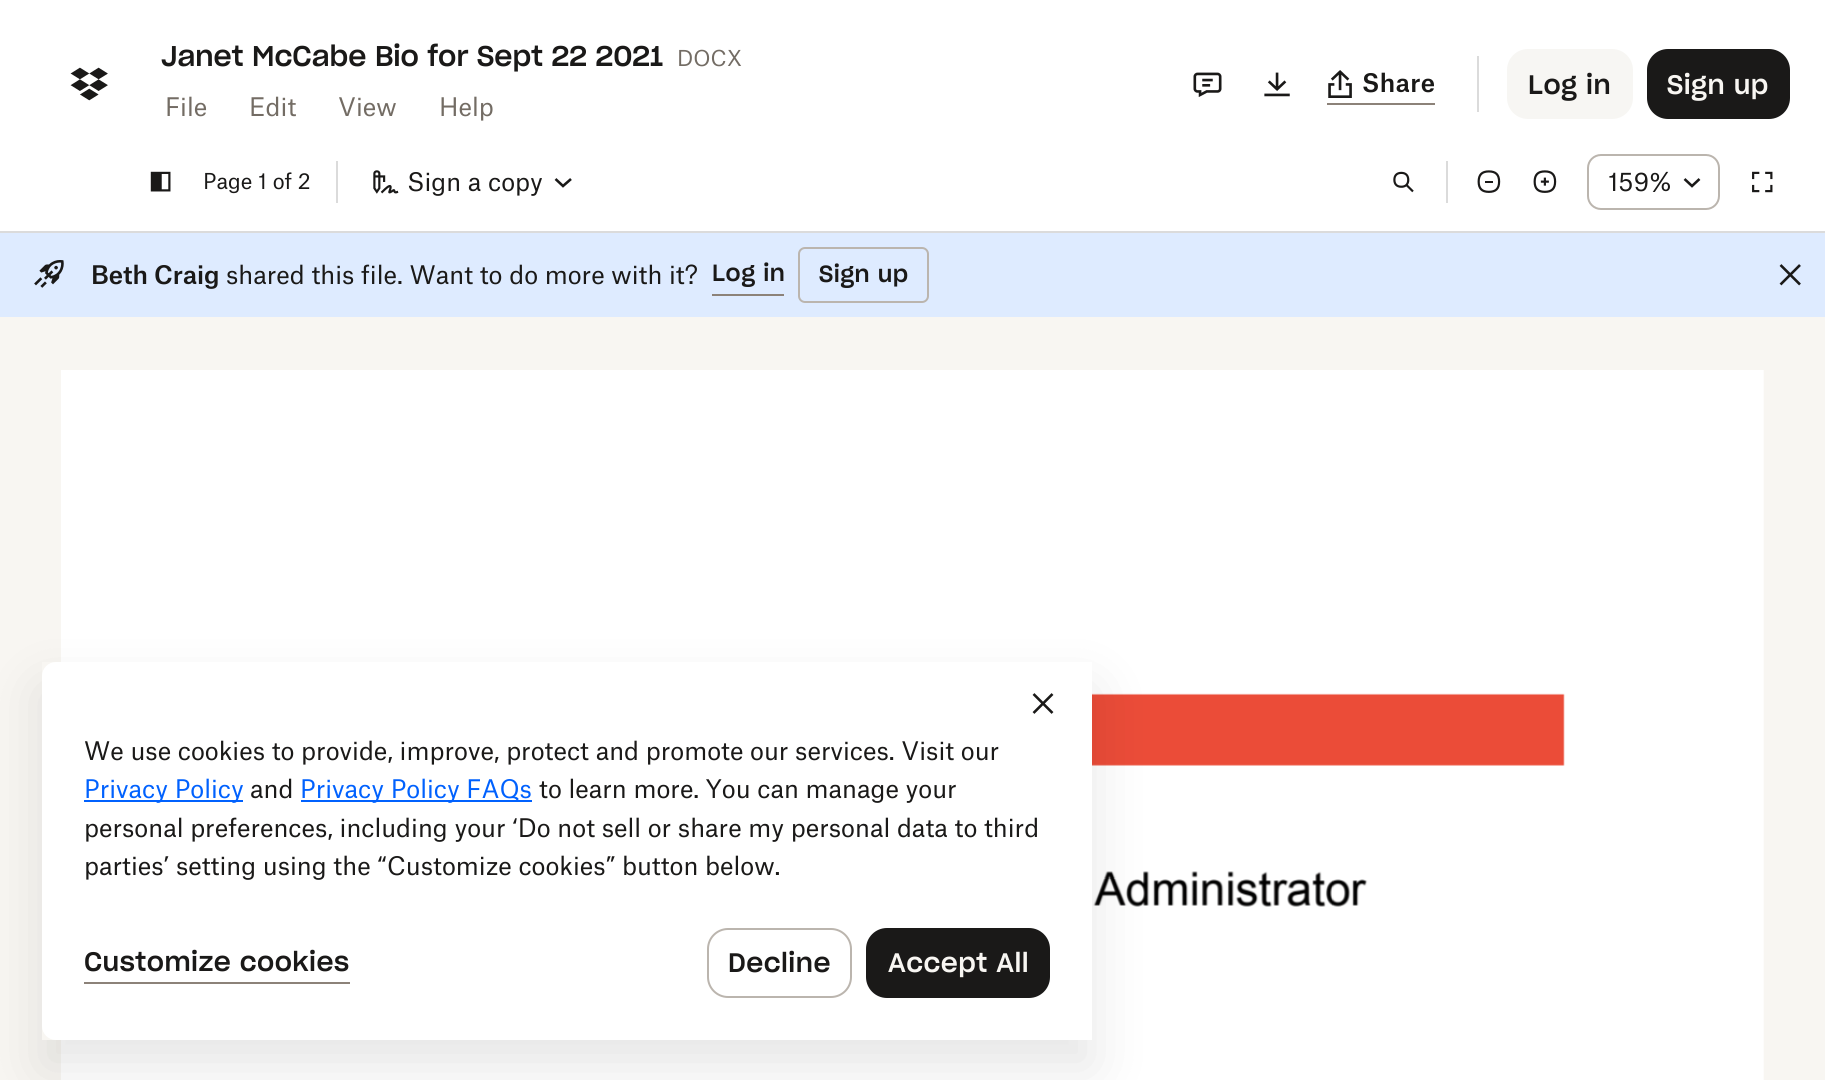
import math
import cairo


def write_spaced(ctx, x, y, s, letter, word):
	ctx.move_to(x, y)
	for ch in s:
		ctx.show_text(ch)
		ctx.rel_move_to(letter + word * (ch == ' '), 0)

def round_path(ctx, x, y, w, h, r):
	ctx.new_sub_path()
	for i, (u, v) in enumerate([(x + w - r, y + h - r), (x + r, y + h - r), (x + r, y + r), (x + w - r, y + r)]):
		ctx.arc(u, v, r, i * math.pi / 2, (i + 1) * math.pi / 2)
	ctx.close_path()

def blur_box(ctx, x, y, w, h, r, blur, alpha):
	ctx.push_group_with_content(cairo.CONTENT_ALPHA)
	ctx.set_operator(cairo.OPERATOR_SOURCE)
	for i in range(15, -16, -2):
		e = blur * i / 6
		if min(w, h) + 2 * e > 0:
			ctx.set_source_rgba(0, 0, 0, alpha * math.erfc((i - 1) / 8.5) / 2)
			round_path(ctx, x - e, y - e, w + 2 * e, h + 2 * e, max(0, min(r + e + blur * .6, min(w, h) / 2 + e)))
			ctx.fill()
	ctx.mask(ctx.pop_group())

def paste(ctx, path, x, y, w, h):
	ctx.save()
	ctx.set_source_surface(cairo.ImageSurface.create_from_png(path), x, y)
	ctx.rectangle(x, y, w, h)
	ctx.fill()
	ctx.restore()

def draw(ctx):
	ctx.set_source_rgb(1, 1, 1)
	ctx.paint()
	ctx.set_source_rgb(0.859, 0.859, 0.859)
	ctx.rectangle(0, 231, 1825, 2)
	ctx.fill()
	paste(ctx, 'media/1.png', 70, 67, 38, 34)
	ctx.select_font_face('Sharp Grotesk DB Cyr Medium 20 Medium')
	ctx.set_font_size(28)
	ctx.set_source_rgb(0.102, 0.098, 0.094)
	ctx.move_to(161, 66)
	ctx.show_text('Janet McCabe Bio for Sept 22 2021')
	ctx.select_font_face('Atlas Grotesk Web')
	ctx.set_font_size(21)
	ctx.set_source_rgb(0.451, 0.424, 0.392)
	ctx.move_to(677, 66)
	ctx.show_text('DOCX')
	ctx.set_font_size(24.5)
	for x, y, s in [
		(165, 116, 'File'),
		(249, 116, 'Edit'),
		(338, 116, 'View'),
		(439, 116, 'Help'),
	]:
		ctx.move_to(x, y)
		ctx.show_text(s)
	paste(ctx, 'media/2.png', 1193, 72, 29, 25)
	paste(ctx, 'media/3.png', 1264, 72, 26, 25)
	ctx.set_source_rgb(0.549, 0.51, 0.475)
	ctx.rectangle(1327, 103, 108, 2)
	ctx.fill()
	paste(ctx, 'media/4.png', 1328, 70, 24, 28)
	ctx.select_font_face('Atlas Grotesk Web Medium')
	ctx.set_source_rgb(0.102, 0.098, 0.094)
	write_spaced(ctx, 1362, 92, 'Share', 0.5, 0)
	ctx.set_source_rgb(0.859, 0.859, 0.859)
	ctx.rectangle(1477, 56, 2, 56)
	ctx.fill()
	ctx.set_source_rgb(0.965, 0.961, 0.953)
	round_path(ctx, 1507, 49, 126, 70, 21)
	ctx.fill()
	ctx.select_font_face('Sharp Grotesk DB Cyr Medium 20 Medium')
	ctx.set_font_size(26.25)
	ctx.set_source_rgb(0.102, 0.098, 0.094)
	write_spaced(ctx, 1528, 94, 'Log in', 0.5, 0)
	round_path(ctx, 1647, 49, 143, 70, 21)
	ctx.fill()
	ctx.set_source_rgb(0.969, 0.961, 0.949)
	write_spaced(ctx, 1667, 94, 'Sign up', 0.5, 0)
	paste(ctx, 'media/5.png', 150, 171, 21, 21)
	ctx.select_font_face('Atlas Grotesk Web')
	ctx.set_font_size(21)
	ctx.set_source_rgb(0.102, 0.098, 0.094)
	ctx.move_to(203, 189)
	ctx.show_text('Page 1 of 2')
	ctx.set_source_rgb(0.859, 0.859, 0.859)
	ctx.rectangle(336, 161, 2, 42)
	ctx.fill()
	paste(ctx, 'media/6.png', 373, 170, 26, 24)
	ctx.set_font_size(24.5)
	ctx.set_source_rgb(0.102, 0.098, 0.094)
	ctx.move_to(407, 191)
	ctx.show_text('Sign a copy')
	ctx.new_path()
	ctx.move_to(555.5, 179)
	ctx.line_to(563, 186)
	ctx.line_to(571, 179)
	ctx.set_line_width(2.6)
	ctx.stroke()
	paste(ctx, 'media/7.png', 1393, 171, 21, 22)
	ctx.set_source_rgb(0.859, 0.859, 0.859)
	ctx.rectangle(1446, 161, 2, 42)
	ctx.fill()
	paste(ctx, 'media/8.png', 1477, 170, 24, 23)
	paste(ctx, 'media/9.png', 1533, 170, 24, 23)
	round_path(ctx, 1588, 155, 131, 54, 13)
	ctx.set_source_rgb(0.733, 0.71, 0.682)
	ctx.set_line_width(2)
	ctx.stroke()
	ctx.set_source_rgb(0.102, 0.098, 0.094)
	ctx.move_to(1608, 191)
	ctx.show_text('159%')
	ctx.new_path()
	ctx.move_to(1684.5, 179)
	ctx.line_to(1692, 186)
	ctx.line_to(1699.5, 179)
	ctx.set_line_width(2.6)
	ctx.stroke()
	paste(ctx, 'media/10.png', 1752, 171, 21, 22)
	ctx.set_source_rgb(0.969, 0.961, 0.949)
	ctx.rectangle(0, 317, 1825, 763)
	ctx.fill()
	gradient = cairo.LinearGradient(0, 317, 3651, 317)
	gradient.add_color_stop_rgba(0, 0.871, 0.922, 1, 1)
	gradient.add_color_stop_rgba(0.5, 0.871, 0.922, 1, 1)
	gradient.add_color_stop_rgba(0.73, 0.706, 0.82, 1, 1)
	gradient.add_color_stop_rgba(0.94, 0.871, 0.922, 1, 1)
	ctx.set_source(gradient)
	ctx.rectangle(0, 233, 1825, 84)
	ctx.fill()
	paste(ctx, 'media/11.png', 34, 260, 30, 28)
	ctx.select_font_face('Atlas Grotesk Web Medium')
	ctx.set_source_rgb(0.102, 0.098, 0.094)
	ctx.move_to(91, 284)
	ctx.show_text('Beth Craig')
	ctx.select_font_face('Atlas Grotesk Web')
	ctx.move_to(226, 284)
	ctx.show_text('shared this file. Want to do more with it?')
	ctx.set_source_rgb(0.549, 0.51, 0.475)
	ctx.rectangle(712, 294, 72, 2)
	ctx.fill()
	ctx.select_font_face('Sharp Grotesk DB Cyr Medium 20 Medium')
	ctx.set_font_size(23)
	ctx.set_source_rgb(0.102, 0.098, 0.094)
	write_spaced(ctx, 712, 281, 'Log in', 0.5, 0)
	round_path(ctx, 799, 248, 129, 54, 6)
	ctx.set_source_rgb(0.733, 0.71, 0.682)
	ctx.set_line_width(2)
	ctx.stroke()
	ctx.set_source_rgb(0.102, 0.098, 0.094)
	write_spaced(ctx, 819, 282, 'Sign up', 0.5, 0)
	ctx.new_path()
	ctx.move_to(1800, 265)
	ctx.line_to(1780.5, 284.5)
	ctx.move_to(1800, 284.5)
	ctx.line_to(1780.5, 265)
	ctx.set_line_width(2.6)
	ctx.stroke()
	paste(ctx, 'media/12.png', 61, 370, 1703, 710)
	ctx.save()
	ctx.set_fill_rule(cairo.FILL_RULE_EVEN_ODD)
	ctx.new_path()
	ctx.move_to(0, 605)
	ctx.line_to(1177, 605)
	ctx.line_to(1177, 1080)
	ctx.line_to(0, 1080)
	ctx.close_path()
	ctx.move_to(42, 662)
	ctx.line_to(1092, 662)
	ctx.line_to(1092, 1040)
	ctx.line_to(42, 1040)
	ctx.close_path()
	ctx.clip()
	ctx.set_source_rgb(0, 0, 0)
	blur_box(ctx, 42, 690, 1050, 378, 0, 28, 0.1)
	ctx.restore()
	ctx.set_source_rgb(1, 1, 1)
	round_path(ctx, 42, 662, 1050, 378, 14)
	ctx.fill()
	ctx.new_path()
	ctx.move_to(1052.5, 694)
	ctx.line_to(1033.5, 713)
	ctx.move_to(1052.5, 713)
	ctx.line_to(1033.5, 694)
	ctx.set_source_rgb(0.102, 0.098, 0.094)
	ctx.stroke()
	ctx.select_font_face('Atlas Grotesk Web')
	ctx.set_font_size(24.5)
	ctx.move_to(84, 760)
	ctx.show_text('We use cookies to provide, improve, protect and promote our services. Visit our')
	ctx.set_source_rgb(0, 0.38, 0.996)
	ctx.rectangle(84, 800, 159, 2)
	ctx.fill()
	ctx.move_to(84, 798)
	ctx.show_text('Privacy Policy')
	ctx.set_source_rgb(0.102, 0.098, 0.094)
	ctx.move_to(250, 798)
	ctx.show_text('and')
	ctx.set_source_rgb(0, 0.38, 0.996)
	ctx.rectangle(301, 800, 231, 2)
	ctx.fill()
	ctx.move_to(300, 798)
	ctx.show_text('Privacy Policy FAQs')
	ctx.set_source_rgb(0.102, 0.098, 0.094)
	for x, y, s in [
		(539, 798, 'to learn more. You can manage your'),
		(84, 837, 'personal preferences, including your ‘Do not sell or share my personal data to third'),
		(84, 875, 'parties’ setting using the “Customize cookies” button below.'),
	]:
		ctx.move_to(x, y)
		ctx.show_text(s)
	ctx.set_source_rgb(0.549, 0.51, 0.475)
	ctx.rectangle(84, 982, 266, 2)
	ctx.fill()
	ctx.select_font_face('Sharp Grotesk DB Cyr Medium 20 Medium')
	ctx.set_font_size(26.25)
	ctx.set_source_rgb(0.102, 0.098, 0.094)
	write_spaced(ctx, 84, 971, 'Customize cookies', 0.5, 0)
	round_path(ctx, 708, 929, 143, 68, 20)
	ctx.set_source_rgb(0.733, 0.71, 0.682)
	ctx.set_line_width(2)
	ctx.stroke()
	ctx.set_source_rgb(0.102, 0.098, 0.094)
	write_spaced(ctx, 728, 972, 'Decline', 0.5, 0)
	round_path(ctx, 866, 928, 184, 70, 21)
	ctx.fill()
	ctx.set_source_rgb(0.969, 0.961, 0.949)
	write_spaced(ctx, 888, 972, 'Accept All', 0.5, 0)


surface = cairo.ImageSurface(cairo.FORMAT_RGB24, 1825, 1080)
ctx = cairo.Context(surface)
options = cairo.FontOptions()
options.set_hint_metrics(cairo.HINT_METRICS_OFF)
options.set_hint_style(cairo.HINT_STYLE_NONE)
ctx.set_font_options(options)
ctx.set_miter_limit(4)
draw(ctx)
surface.write_to_png('image.png')
